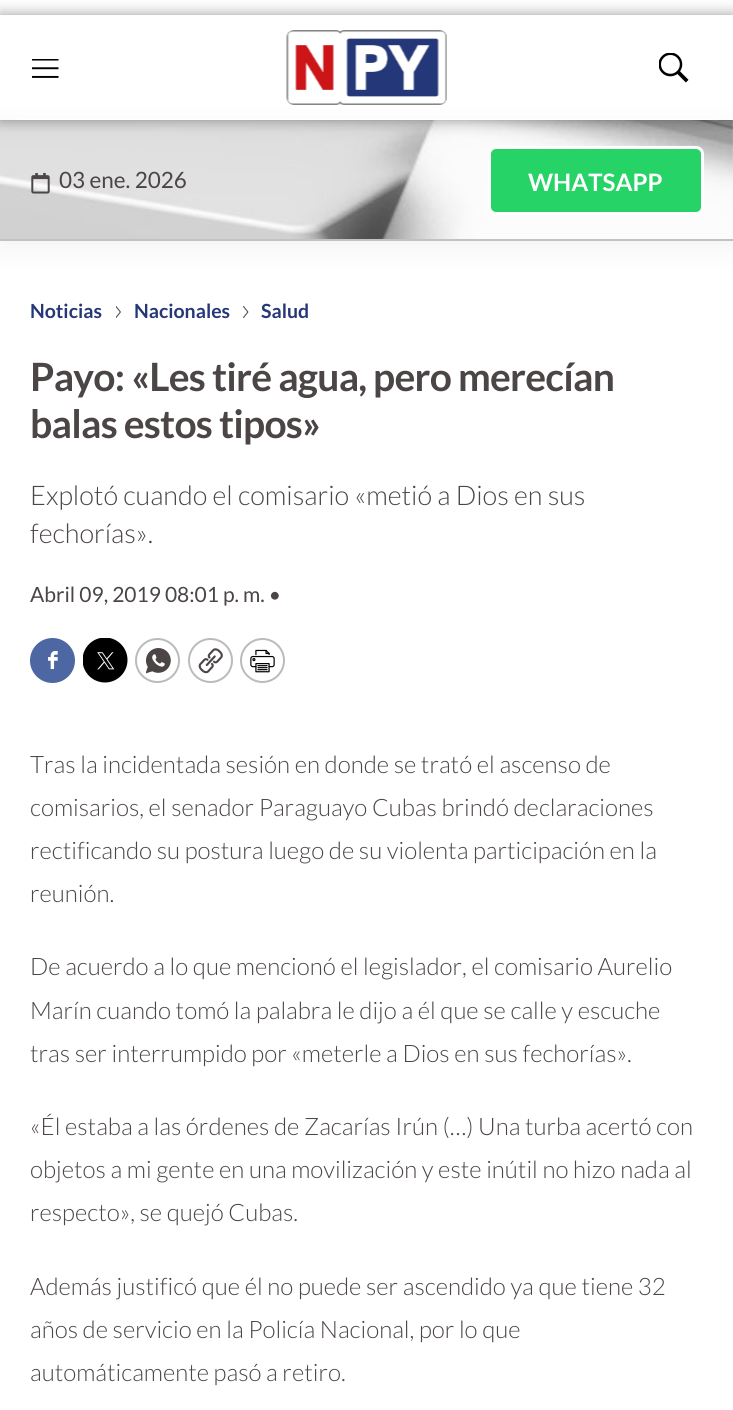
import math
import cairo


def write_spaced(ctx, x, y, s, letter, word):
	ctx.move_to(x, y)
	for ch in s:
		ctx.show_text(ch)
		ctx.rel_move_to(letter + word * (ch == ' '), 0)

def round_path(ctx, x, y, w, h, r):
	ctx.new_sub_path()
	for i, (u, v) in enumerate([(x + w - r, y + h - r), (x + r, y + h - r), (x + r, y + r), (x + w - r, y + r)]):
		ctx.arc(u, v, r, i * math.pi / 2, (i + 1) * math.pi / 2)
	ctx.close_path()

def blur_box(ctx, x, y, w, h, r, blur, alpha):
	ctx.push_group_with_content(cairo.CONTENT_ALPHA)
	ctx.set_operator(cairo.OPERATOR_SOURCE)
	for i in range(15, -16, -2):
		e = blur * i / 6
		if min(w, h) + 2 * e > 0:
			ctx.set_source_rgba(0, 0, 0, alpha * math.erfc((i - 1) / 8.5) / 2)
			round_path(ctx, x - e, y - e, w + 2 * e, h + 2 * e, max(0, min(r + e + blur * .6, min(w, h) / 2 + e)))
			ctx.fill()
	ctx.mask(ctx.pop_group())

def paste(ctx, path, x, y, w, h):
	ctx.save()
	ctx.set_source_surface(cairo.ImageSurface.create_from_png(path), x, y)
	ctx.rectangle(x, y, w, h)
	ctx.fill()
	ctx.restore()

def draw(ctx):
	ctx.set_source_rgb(1, 1, 1)
	ctx.paint()
	ctx.set_source_rgb(0, 0, 0)
	blur_box(ctx, 0, 128, 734, 120, 0, 15, 0.05)
	paste(ctx, 'media/4.png', 0, 120, 733, 119)
	ctx.save()
	ctx.set_fill_rule(cairo.FILL_RULE_EVEN_ODD)
	ctx.new_path()
	ctx.move_to(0, 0)
	ctx.line_to(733, 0)
	ctx.line_to(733, 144)
	ctx.line_to(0, 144)
	ctx.close_path()
	ctx.move_to(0, 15)
	ctx.line_to(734, 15)
	ctx.line_to(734, 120)
	ctx.line_to(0, 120)
	ctx.close_path()
	ctx.clip()
	blur_box(ctx, 0, 15, 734, 105, 0, 7.5, 0.4)
	ctx.restore()
	ctx.set_source_rgba(1, 1, 1, 0.8)
	ctx.rectangle(17, 118, 700, 2)
	ctx.fill()
	paste(ctx, 'media/1.png', 32, 59, 27, 19)
	paste(ctx, 'media/2.png', 286, 30, 161, 75)
	paste(ctx, 'media/3.png', 659, 53, 30, 30)
	ctx.set_source_rgb(0.761, 0.761, 0.761)
	ctx.rectangle(0, 239, 733, 2)
	ctx.fill()
	paste(ctx, 'media/5.png', 31, 173, 19, 21)
	ctx.select_font_face('Lato')
	ctx.set_font_size(22.5)
	ctx.set_source_rgb(0.294, 0.271, 0.271)
	ctx.move_to(59, 188)
	ctx.show_text('03 ene. 2026')
	ctx.set_source_rgb(0.145, 0.827, 0.4)
	round_path(ctx, 489.5, 147.5, 213, 66, 6.5)
	ctx.fill_preserve()
	ctx.set_source_rgb(1, 1, 1)
	ctx.set_line_width(3)
	ctx.stroke()
	ctx.select_font_face('Lato', cairo.FONT_SLANT_NORMAL, cairo.FONT_WEIGHT_BOLD)
	ctx.set_font_size(24)
	ctx.move_to(528, 191)
	ctx.show_text('WHATSAPP')
	ctx.set_font_size(19.5)
	ctx.set_source_rgb(0.145, 0.216, 0.467)
	ctx.move_to(30, 318)
	ctx.show_text('Noticias')
	paste(ctx, 'media/6.png', 116, 306, 5, 12)
	ctx.move_to(134, 318)
	ctx.show_text('Nacionales')
	paste(ctx, 'media/7.png', 243, 306, 6, 12)
	ctx.move_to(261, 318)
	ctx.show_text('Salud')
	ctx.set_font_size(39)
	ctx.set_source_rgb(0.294, 0.271, 0.271)
	write_spaced(ctx, 30, 391, 'Payo: «Les tiré agua, pero merecían', -0.75, 0)
	write_spaced(ctx, 30, 438, 'balas estos tipos»', -0.75, 0)
	ctx.select_font_face('Lato Light')
	ctx.set_font_size(27)
	ctx.move_to(30, 505)
	ctx.show_text('Explotó cuando el comisario «metió a Dios en sus')
	ctx.move_to(30, 543)
	ctx.show_text('fechorías».')
	ctx.select_font_face('Lato')
	ctx.set_font_size(21)
	ctx.move_to(30, 602)
	ctx.show_text('Abril 09, 2019 08:01 p. m. •')
	ctx.set_source_rgb(0.298, 0.404, 0.631)
	ctx.new_path()
	ctx.arc(52.5, 660.5, 22.5, 0, 2 * math.pi)
	ctx.fill()
	paste(ctx, 'media/8.png', 48, 651, 10, 18)
	paste(ctx, 'media/9.png', 83, 638, 45, 45)
	ctx.arc(157.5, 660.5, 21.5, 0, 2 * math.pi)
	ctx.set_source_rgb(0.733, 0.733, 0.733)
	ctx.set_line_width(2)
	ctx.stroke()
	paste(ctx, 'media/10.png', 146, 648, 25, 26)
	ctx.arc(210.5, 660.5, 21.5, 0, 2 * math.pi)
	ctx.stroke()
	paste(ctx, 'media/11.png', 198, 648, 25, 26)
	ctx.arc(262.5, 660.5, 21.5, 0, 2 * math.pi)
	ctx.stroke()
	paste(ctx, 'media/12.png', 250, 649, 25, 24)
	ctx.select_font_face('Lato Light')
	ctx.set_font_size(24)
	ctx.set_source_rgb(0.294, 0.271, 0.271)
	for x, y, s in [
		(30, 773, 'Tras la incidentada sesión en donde se trató el ascenso de'),
		(30, 816, 'comisarios, el senador Paraguayo Cubas brindó declaraciones'),
		(30, 859, 'rectificando su postura luego de su violenta participación en la'),
		(30, 902, 'reunión.'),
		(30, 975, 'De acuerdo a lo que mencionó el legislador, el comisario Aurelio'),
		(30, 1019, 'Marín cuando tomó la palabra le dijo a él que se calle y escuche'),
		(30, 1062, 'tras ser interrumpido por «meterle a Dios en sus fechorías».'),
		(30, 1135, '«Él estaba a las órdenes de Zacarías Irún (…) Una turba acertó con'),
		(30, 1178, 'objetos a mi gente en una movilización y este inútil no hizo nada al'),
		(30, 1221, 'respecto», se quejó Cubas.'),
		(30, 1295, 'Además justificó que él no puede ser ascendido ya que tiene 32'),
		(30, 1338, 'años de servicio en la Policía Nacional, por lo que'),
		(30, 1381, 'automáticamente pasó a retiro.'),
	]:
		ctx.move_to(x, y)
		ctx.show_text(s)


surface = cairo.ImageSurface(cairo.FORMAT_RGB24, 733, 1410)
ctx = cairo.Context(surface)
options = cairo.FontOptions()
options.set_hint_metrics(cairo.HINT_METRICS_OFF)
options.set_hint_style(cairo.HINT_STYLE_NONE)
ctx.set_font_options(options)
ctx.set_miter_limit(4)
draw(ctx)
surface.write_to_png('image.png')
